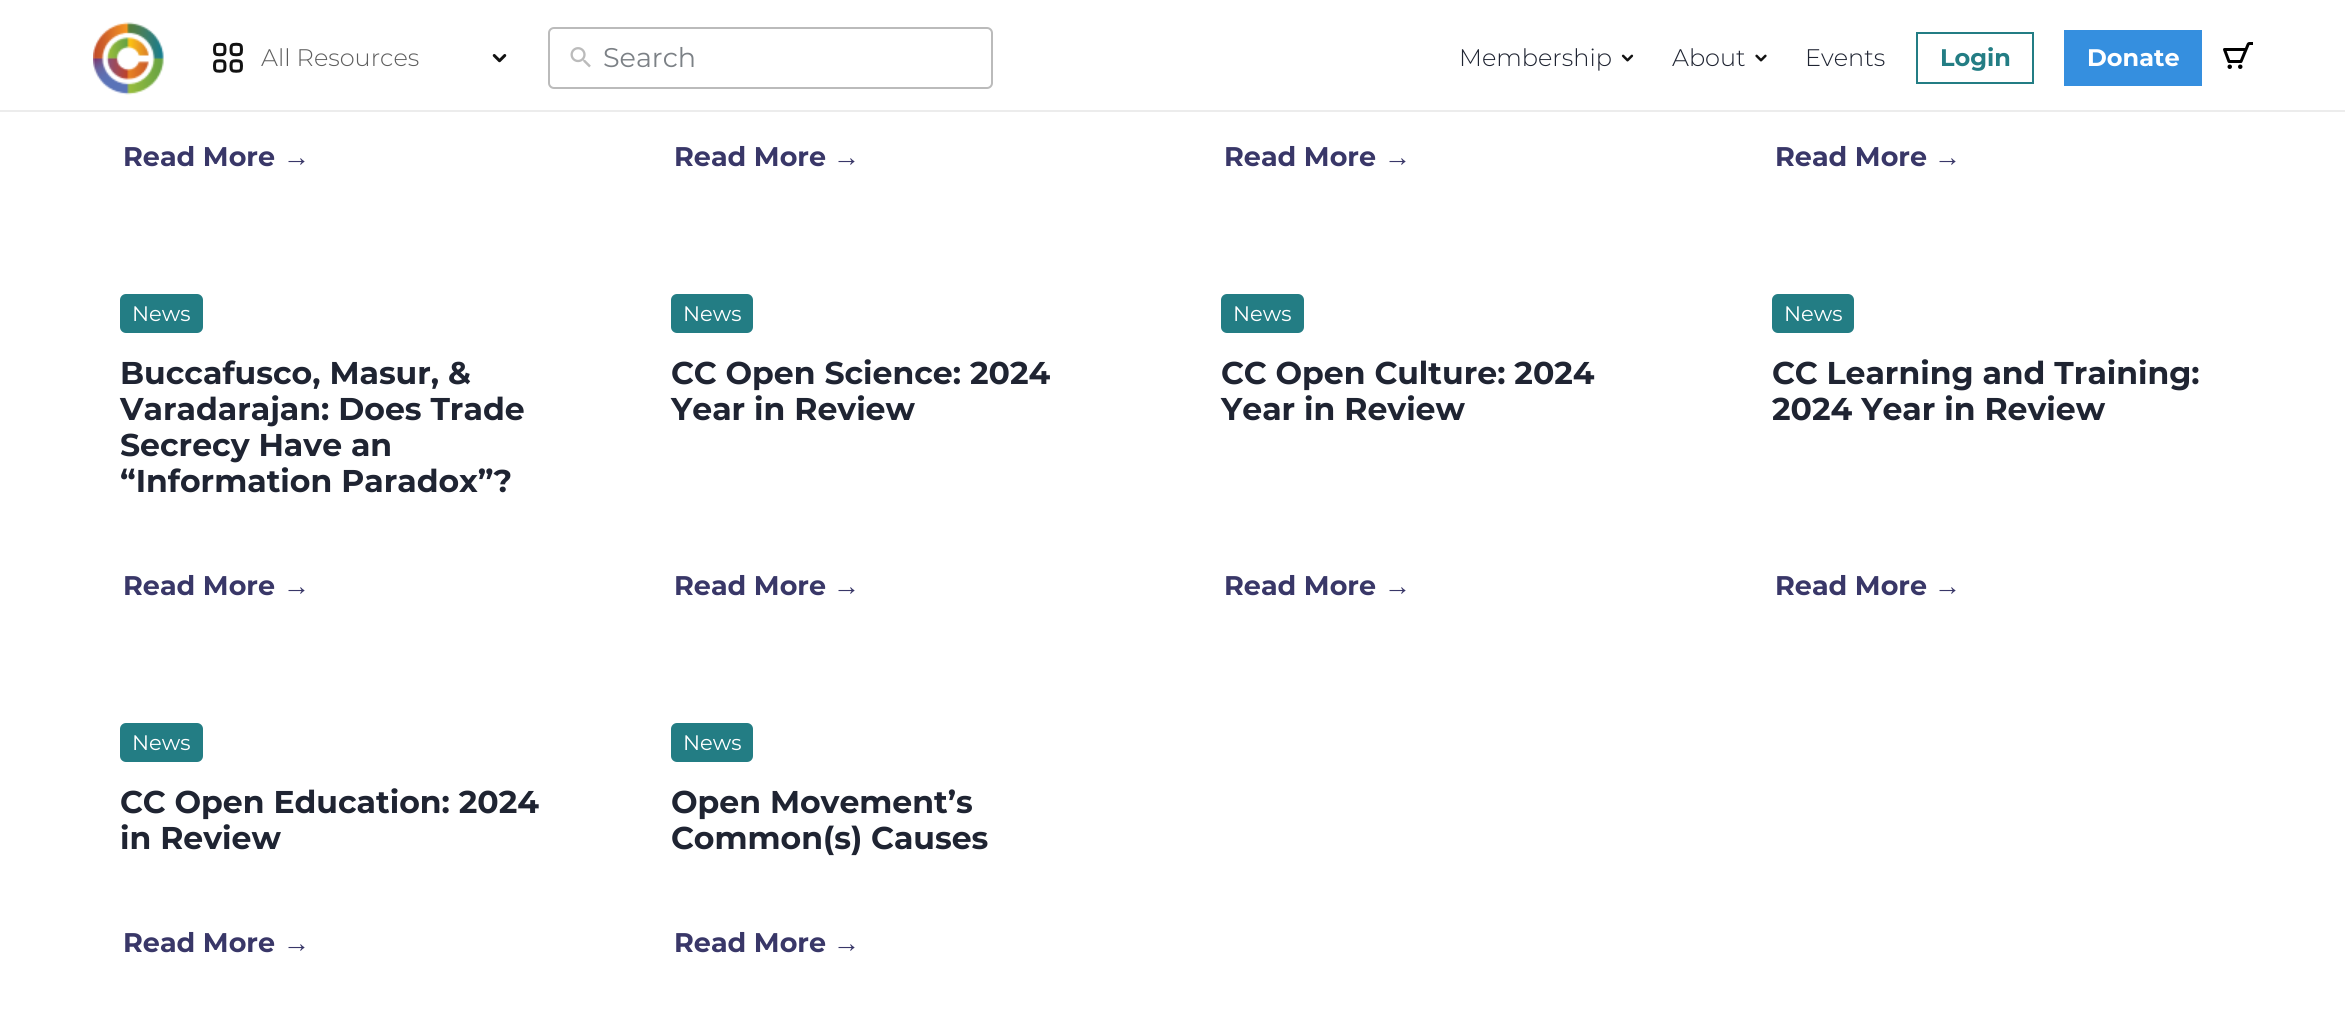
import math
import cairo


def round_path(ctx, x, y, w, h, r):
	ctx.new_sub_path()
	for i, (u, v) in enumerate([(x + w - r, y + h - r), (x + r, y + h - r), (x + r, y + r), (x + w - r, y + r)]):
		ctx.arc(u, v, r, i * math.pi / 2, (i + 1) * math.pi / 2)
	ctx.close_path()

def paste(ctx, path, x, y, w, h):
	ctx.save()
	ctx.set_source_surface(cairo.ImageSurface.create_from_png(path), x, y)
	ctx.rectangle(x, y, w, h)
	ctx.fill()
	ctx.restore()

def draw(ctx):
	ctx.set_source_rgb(1, 1, 1)
	ctx.paint()
	ctx.set_source_rgb(0.925, 0.925, 0.925)
	ctx.rectangle(0, 110, 2345, 2)
	ctx.fill()
	paste(ctx, 'media/1.png', 93, 22, 71, 73)
	paste(ctx, 'media/2.png', 213, 42, 30, 31)
	ctx.select_font_face('Montserrat Light')
	ctx.set_font_size(24)
	ctx.set_source_rgb(0.369, 0.369, 0.369)
	ctx.move_to(261, 66)
	ctx.show_text('All Resources')
	paste(ctx, 'media/3.png', 492, 54, 15, 9)
	round_path(ctx, 549, 28, 443, 60, 5)
	ctx.set_source_rgb(0.733, 0.733, 0.733)
	ctx.stroke()
	paste(ctx, 'media/4.png', 570, 47, 21, 21)
	ctx.select_font_face('Montserrat')
	ctx.set_font_size(27)
	ctx.set_source_rgb(0.486, 0.506, 0.525)
	ctx.move_to(603, 67)
	ctx.show_text('Search')
	ctx.select_font_face('Montserrat Light')
	ctx.set_font_size(24)
	ctx.set_source_rgb(0.122, 0.141, 0.196)
	ctx.move_to(1459, 66)
	ctx.show_text('Membership')
	paste(ctx, 'media/5.png', 1621, 54, 13, 8)
	ctx.move_to(1672, 66)
	ctx.show_text('About')
	paste(ctx, 'media/6.png', 1755, 54, 12, 8)
	ctx.move_to(1805, 66)
	ctx.show_text('Events')
	ctx.rectangle(1917, 33, 116, 50)
	ctx.set_source_rgb(0.137, 0.49, 0.518)
	ctx.stroke()
	ctx.select_font_face('Montserrat', cairo.FONT_SLANT_NORMAL, cairo.FONT_WEIGHT_BOLD)
	ctx.move_to(1940, 66)
	ctx.show_text('Login')
	ctx.set_source_rgb(0.208, 0.561, 0.875)
	ctx.rectangle(2064, 30, 138, 56)
	ctx.fill()
	ctx.set_source_rgb(1, 1, 1)
	ctx.move_to(2087, 66)
	ctx.show_text('Donate')
	paste(ctx, 'media/7.png', 2223, 42, 30, 27)
	ctx.set_font_size(27)
	ctx.set_source_rgb(0.224, 0.216, 0.408)
	ctx.move_to(123, 166)
	ctx.show_text('Read More')
	ctx.select_font_face('Liberation Serif', cairo.FONT_SLANT_NORMAL, cairo.FONT_WEIGHT_BOLD)
	ctx.move_to(283, 166)
	ctx.show_text('→')
	ctx.select_font_face('Montserrat', cairo.FONT_SLANT_NORMAL, cairo.FONT_WEIGHT_BOLD)
	ctx.move_to(674, 166)
	ctx.show_text('Read More')
	ctx.select_font_face('Liberation Serif', cairo.FONT_SLANT_NORMAL, cairo.FONT_WEIGHT_BOLD)
	ctx.move_to(833, 166)
	ctx.show_text('→')
	ctx.select_font_face('Montserrat', cairo.FONT_SLANT_NORMAL, cairo.FONT_WEIGHT_BOLD)
	ctx.move_to(1224, 166)
	ctx.show_text('Read More')
	ctx.select_font_face('Liberation Serif', cairo.FONT_SLANT_NORMAL, cairo.FONT_WEIGHT_BOLD)
	ctx.move_to(1384, 166)
	ctx.show_text('→')
	ctx.select_font_face('Montserrat', cairo.FONT_SLANT_NORMAL, cairo.FONT_WEIGHT_BOLD)
	ctx.move_to(1775, 166)
	ctx.show_text('Read More')
	ctx.select_font_face('Liberation Serif', cairo.FONT_SLANT_NORMAL, cairo.FONT_WEIGHT_BOLD)
	ctx.move_to(1934, 166)
	ctx.show_text('→')
	ctx.set_source_rgb(0.137, 0.49, 0.518)
	round_path(ctx, 120, 294, 83, 39, 6)
	ctx.fill()
	ctx.select_font_face('Montserrat')
	ctx.set_font_size(21)
	ctx.set_source_rgb(1, 1, 1)
	ctx.move_to(132, 321)
	ctx.show_text('News')
	ctx.select_font_face('Montserrat', cairo.FONT_SLANT_NORMAL, cairo.FONT_WEIGHT_BOLD)
	ctx.set_font_size(31.5)
	ctx.set_source_rgb(0.122, 0.141, 0.196)
	for x, y, s in [
		(120, 384, 'Buccafusco, Masur, &'),
		(120, 420, 'Varadarajan: Does Trade'),
		(120, 456, 'Secrecy Have an'),
		(120, 492, '“Information Paradox”?'),
	]:
		ctx.move_to(x, y)
		ctx.show_text(s)
	ctx.set_font_size(27)
	ctx.set_source_rgb(0.224, 0.216, 0.408)
	ctx.move_to(123, 595)
	ctx.show_text('Read More')
	ctx.select_font_face('Liberation Serif', cairo.FONT_SLANT_NORMAL, cairo.FONT_WEIGHT_BOLD)
	ctx.move_to(283, 595)
	ctx.show_text('→')
	ctx.set_source_rgb(0.137, 0.49, 0.518)
	round_path(ctx, 671, 294, 82, 39, 6)
	ctx.fill()
	ctx.select_font_face('Montserrat')
	ctx.set_font_size(21)
	ctx.set_source_rgb(1, 1, 1)
	ctx.move_to(683, 321)
	ctx.show_text('News')
	ctx.select_font_face('Montserrat', cairo.FONT_SLANT_NORMAL, cairo.FONT_WEIGHT_BOLD)
	ctx.set_font_size(31.5)
	ctx.set_source_rgb(0.122, 0.141, 0.196)
	ctx.move_to(671, 384)
	ctx.show_text('CC Open Science: 2024')
	ctx.move_to(671, 420)
	ctx.show_text('Year in Review')
	ctx.set_font_size(27)
	ctx.set_source_rgb(0.224, 0.216, 0.408)
	ctx.move_to(674, 595)
	ctx.show_text('Read More')
	ctx.select_font_face('Liberation Serif', cairo.FONT_SLANT_NORMAL, cairo.FONT_WEIGHT_BOLD)
	ctx.move_to(833, 595)
	ctx.show_text('→')
	ctx.set_source_rgb(0.137, 0.49, 0.518)
	round_path(ctx, 1221, 294, 83, 39, 6)
	ctx.fill()
	ctx.select_font_face('Montserrat')
	ctx.set_font_size(21)
	ctx.set_source_rgb(1, 1, 1)
	ctx.move_to(1233, 321)
	ctx.show_text('News')
	ctx.select_font_face('Montserrat', cairo.FONT_SLANT_NORMAL, cairo.FONT_WEIGHT_BOLD)
	ctx.set_font_size(31.5)
	ctx.set_source_rgb(0.122, 0.141, 0.196)
	ctx.move_to(1221, 384)
	ctx.show_text('CC Open Culture: 2024')
	ctx.move_to(1221, 420)
	ctx.show_text('Year in Review')
	ctx.set_font_size(27)
	ctx.set_source_rgb(0.224, 0.216, 0.408)
	ctx.move_to(1224, 595)
	ctx.show_text('Read More')
	ctx.select_font_face('Liberation Serif', cairo.FONT_SLANT_NORMAL, cairo.FONT_WEIGHT_BOLD)
	ctx.move_to(1384, 595)
	ctx.show_text('→')
	ctx.set_source_rgb(0.137, 0.49, 0.518)
	round_path(ctx, 1772, 294, 82, 39, 6)
	ctx.fill()
	ctx.select_font_face('Montserrat')
	ctx.set_font_size(21)
	ctx.set_source_rgb(1, 1, 1)
	ctx.move_to(1784, 321)
	ctx.show_text('News')
	ctx.select_font_face('Montserrat', cairo.FONT_SLANT_NORMAL, cairo.FONT_WEIGHT_BOLD)
	ctx.set_font_size(31.5)
	ctx.set_source_rgb(0.122, 0.141, 0.196)
	ctx.move_to(1772, 384)
	ctx.show_text('CC Learning and Training:')
	ctx.move_to(1772, 420)
	ctx.show_text('2024 Year in Review')
	ctx.set_font_size(27)
	ctx.set_source_rgb(0.224, 0.216, 0.408)
	ctx.move_to(1775, 595)
	ctx.show_text('Read More')
	ctx.select_font_face('Liberation Serif', cairo.FONT_SLANT_NORMAL, cairo.FONT_WEIGHT_BOLD)
	ctx.move_to(1934, 595)
	ctx.show_text('→')
	ctx.set_source_rgb(0.137, 0.49, 0.518)
	round_path(ctx, 120, 723, 83, 39, 6)
	ctx.fill()
	ctx.select_font_face('Montserrat')
	ctx.set_font_size(21)
	ctx.set_source_rgb(1, 1, 1)
	ctx.move_to(132, 750)
	ctx.show_text('News')
	ctx.select_font_face('Montserrat', cairo.FONT_SLANT_NORMAL, cairo.FONT_WEIGHT_BOLD)
	ctx.set_font_size(31.5)
	ctx.set_source_rgb(0.122, 0.141, 0.196)
	ctx.move_to(120, 813)
	ctx.show_text('CC Open Education: 2024')
	ctx.move_to(120, 849)
	ctx.show_text('in Review')
	ctx.set_font_size(27)
	ctx.set_source_rgb(0.224, 0.216, 0.408)
	ctx.move_to(123, 952)
	ctx.show_text('Read More')
	ctx.select_font_face('Liberation Serif', cairo.FONT_SLANT_NORMAL, cairo.FONT_WEIGHT_BOLD)
	ctx.move_to(283, 952)
	ctx.show_text('→')
	ctx.set_source_rgb(0.137, 0.49, 0.518)
	round_path(ctx, 671, 723, 82, 39, 6)
	ctx.fill()
	ctx.select_font_face('Montserrat')
	ctx.set_font_size(21)
	ctx.set_source_rgb(1, 1, 1)
	ctx.move_to(683, 750)
	ctx.show_text('News')
	ctx.select_font_face('Montserrat', cairo.FONT_SLANT_NORMAL, cairo.FONT_WEIGHT_BOLD)
	ctx.set_font_size(31.5)
	ctx.set_source_rgb(0.122, 0.141, 0.196)
	ctx.move_to(671, 813)
	ctx.show_text('Open Movement’s')
	ctx.move_to(671, 849)
	ctx.show_text('Common(s) Causes')
	ctx.set_font_size(27)
	ctx.set_source_rgb(0.224, 0.216, 0.408)
	ctx.move_to(674, 952)
	ctx.show_text('Read More')
	ctx.select_font_face('Liberation Serif', cairo.FONT_SLANT_NORMAL, cairo.FONT_WEIGHT_BOLD)
	ctx.move_to(833, 952)
	ctx.show_text('→')


surface = cairo.ImageSurface(cairo.FORMAT_RGB24, 2345, 1034)
ctx = cairo.Context(surface)
options = cairo.FontOptions()
options.set_hint_metrics(cairo.HINT_METRICS_OFF)
options.set_hint_style(cairo.HINT_STYLE_NONE)
ctx.set_font_options(options)
ctx.set_miter_limit(4)
draw(ctx)
surface.write_to_png('image.png')
